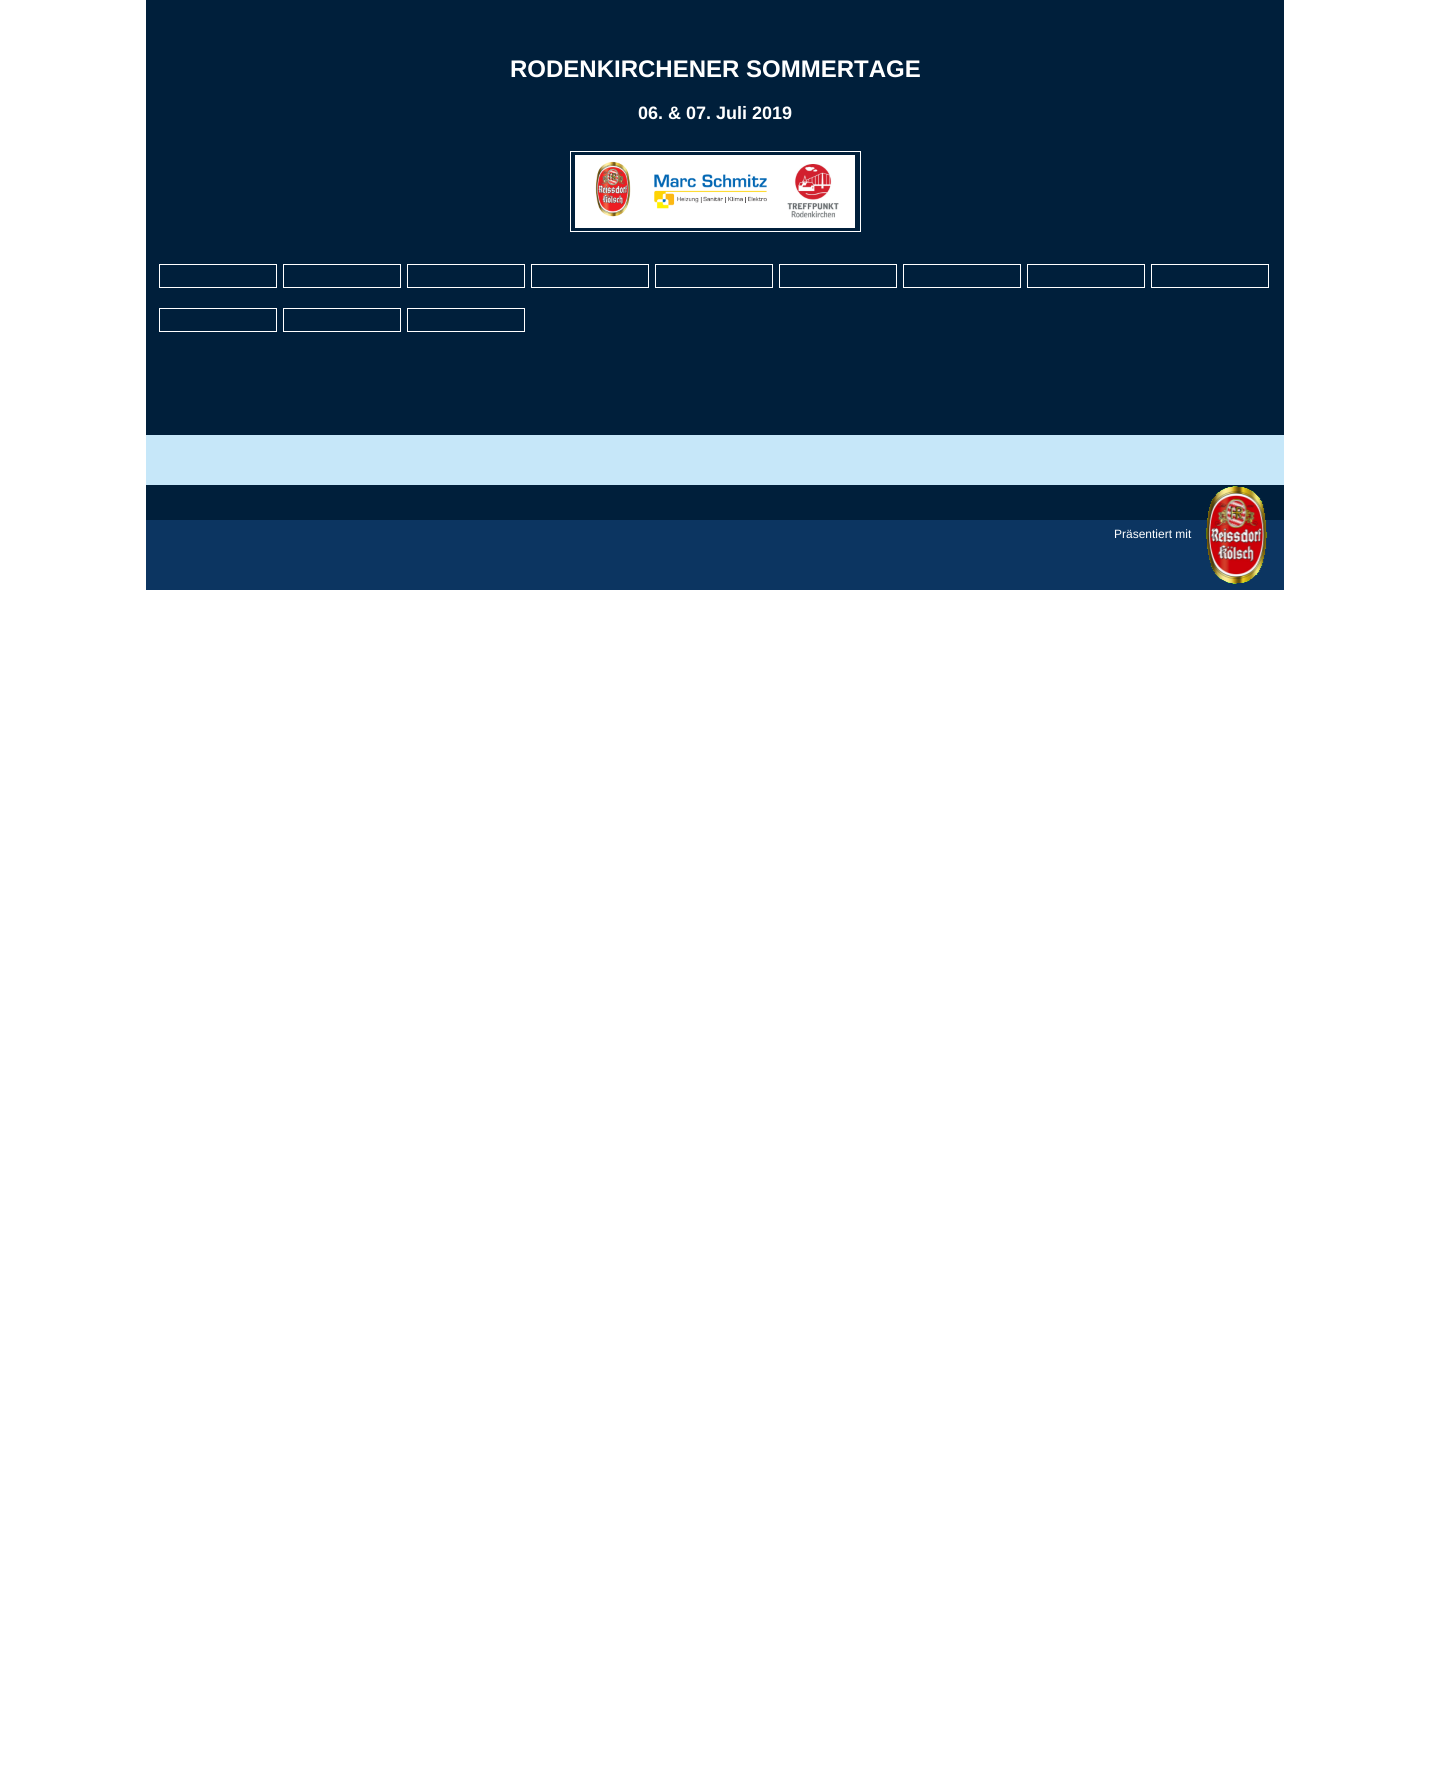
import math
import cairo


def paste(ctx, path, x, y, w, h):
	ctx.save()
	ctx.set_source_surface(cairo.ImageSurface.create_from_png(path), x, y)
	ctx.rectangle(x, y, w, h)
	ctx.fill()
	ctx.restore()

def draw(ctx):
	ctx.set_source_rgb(1, 1, 1)
	ctx.paint()
	ctx.set_source_rgb(0, 0.122, 0.231)
	ctx.rectangle(146, 0, 1138, 520)
	ctx.fill()
	ctx.set_source_rgb(0.047, 0.208, 0.38)
	ctx.rectangle(146, 520, 1138, 70)
	ctx.fill()
	ctx.set_source_rgb(0.776, 0.906, 0.973)
	ctx.rectangle(146, 435, 1138, 50)
	ctx.fill()
	ctx.select_font_face('Liberation Sans', cairo.FONT_SLANT_NORMAL, cairo.FONT_WEIGHT_BOLD)
	ctx.set_font_size(24)
	ctx.set_source_rgb(1, 1, 1)
	ctx.move_to(510, 77)
	ctx.show_text('RODENKIRCHENER SOMMERTAGE')
	ctx.set_font_size(18)
	ctx.move_to(638, 119)
	ctx.show_text('06. & 07. Juli 2019')
	ctx.rectangle(570.5, 151.5, 290, 80)
	ctx.set_line_width(1)
	ctx.stroke()
	paste(ctx, 'media/1.png', 575, 155, 280, 73)
	ctx.rectangle(159.5, 264.5, 117, 23)
	ctx.stroke()
	ctx.rectangle(283.5, 264.5, 117, 23)
	ctx.stroke()
	ctx.rectangle(407.5, 264.5, 117, 23)
	ctx.stroke()
	ctx.rectangle(531.5, 264.5, 117, 23)
	ctx.stroke()
	ctx.rectangle(655.5, 264.5, 117, 23)
	ctx.stroke()
	ctx.rectangle(779.5, 264.5, 117, 23)
	ctx.stroke()
	ctx.rectangle(903.5, 264.5, 117, 23)
	ctx.stroke()
	ctx.rectangle(1027.5, 264.5, 117, 23)
	ctx.stroke()
	ctx.rectangle(1151.5, 264.5, 117, 23)
	ctx.stroke()
	ctx.rectangle(159.5, 308.5, 117, 23)
	ctx.stroke()
	ctx.rectangle(283.5, 308.5, 117, 23)
	ctx.stroke()
	ctx.rectangle(407.5, 308.5, 117, 23)
	ctx.stroke()
	ctx.select_font_face('Liberation Sans')
	ctx.set_font_size(12)
	ctx.move_to(1114, 538)
	ctx.show_text('Präsentiert mit')
	paste(ctx, 'media/2.png', 1206, 486, 62, 98)


surface = cairo.ImageSurface(cairo.FORMAT_RGB24, 1430, 1773)
ctx = cairo.Context(surface)
options = cairo.FontOptions()
options.set_hint_metrics(cairo.HINT_METRICS_OFF)
options.set_hint_style(cairo.HINT_STYLE_NONE)
ctx.set_font_options(options)
ctx.set_miter_limit(4)
draw(ctx)
surface.write_to_png('image.png')
